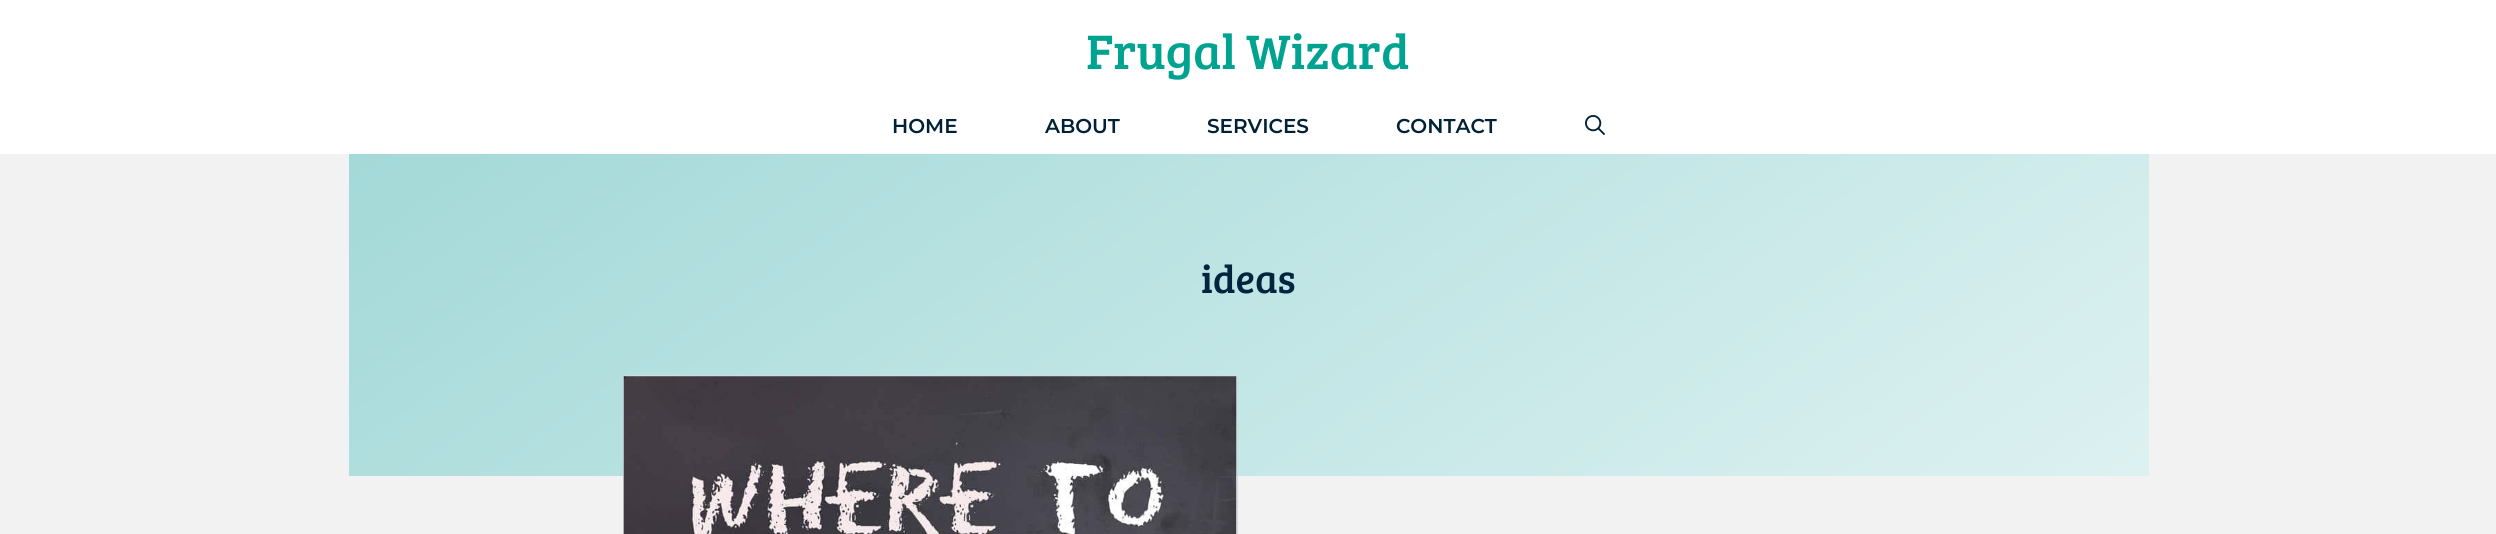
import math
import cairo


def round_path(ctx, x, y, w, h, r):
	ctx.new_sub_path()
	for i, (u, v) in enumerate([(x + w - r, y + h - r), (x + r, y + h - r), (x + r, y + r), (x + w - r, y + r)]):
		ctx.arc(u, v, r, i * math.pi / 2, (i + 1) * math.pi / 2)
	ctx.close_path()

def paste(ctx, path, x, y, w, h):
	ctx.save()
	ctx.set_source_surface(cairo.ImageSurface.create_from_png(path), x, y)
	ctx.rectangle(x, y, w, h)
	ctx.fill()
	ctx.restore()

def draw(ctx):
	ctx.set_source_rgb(0.949, 0.949, 0.949)
	ctx.paint()
	ctx.set_source_rgb(1, 1, 1)
	ctx.rectangle(0, 0, 2496, 154)
	ctx.fill()
	ctx.select_font_face('Bree Serif')
	ctx.set_font_size(50)
	ctx.set_source_rgb(0, 0.639, 0.565)
	ctx.move_to(1086, 69)
	ctx.show_text('Frugal Wizard')
	ctx.select_font_face('Montserrat SemiBold')
	ctx.set_font_size(20)
	ctx.set_source_rgb(0, 0.133, 0.212)
	for x, y, s in [
		(892, 133, 'HOME'),
		(1045, 133, 'ABOUT'),
		(1207, 133, 'SERVICES'),
		(1396, 133, 'CONTACT'),
	]:
		ctx.move_to(x, y)
		ctx.show_text(s)
	paste(ctx, 'media/1.png', 1585, 115, 20, 20)
	gradient = cairo.LinearGradient(877, -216, 1621, 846)
	gradient.add_color_stop_rgba(0, 0.639, 0.851, 0.847, 1)
	gradient.add_color_stop_rgba(1, 0.867, 0.945, 0.945, 1)
	ctx.set_source(gradient)
	ctx.rectangle(349, 154, 1800, 322)
	ctx.fill()
	ctx.select_font_face('Bree Serif')
	ctx.set_font_size(40)
	ctx.set_source_rgb(0, 0.145, 0.243)
	ctx.move_to(1201, 293)
	ctx.show_text('ideas')
	round_path(ctx, 623.5, 375.5, 614, 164, 4.5)
	ctx.set_source_rgb(0.839, 0.855, 0.871)
	ctx.set_line_width(1)
	ctx.stroke()
	paste(ctx, 'media/2.png', 623, 376, 614, 158)


surface = cairo.ImageSurface(cairo.FORMAT_RGB24, 2496, 534)
ctx = cairo.Context(surface)
options = cairo.FontOptions()
options.set_hint_metrics(cairo.HINT_METRICS_OFF)
options.set_hint_style(cairo.HINT_STYLE_NONE)
ctx.set_font_options(options)
ctx.set_miter_limit(4)
draw(ctx)
surface.write_to_png('image.png')
